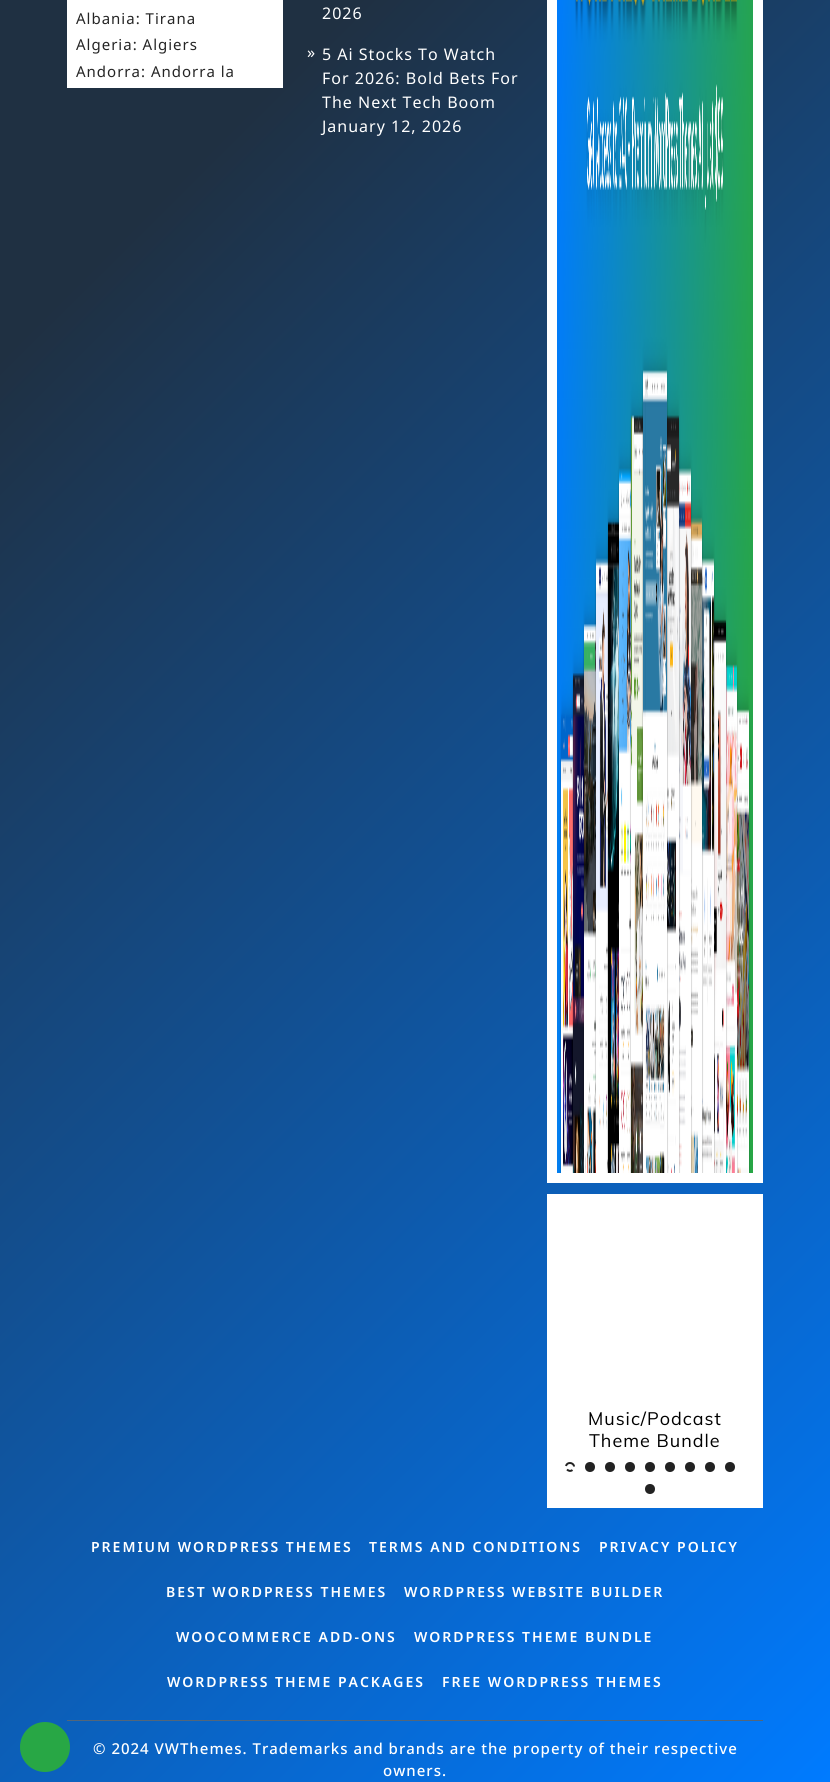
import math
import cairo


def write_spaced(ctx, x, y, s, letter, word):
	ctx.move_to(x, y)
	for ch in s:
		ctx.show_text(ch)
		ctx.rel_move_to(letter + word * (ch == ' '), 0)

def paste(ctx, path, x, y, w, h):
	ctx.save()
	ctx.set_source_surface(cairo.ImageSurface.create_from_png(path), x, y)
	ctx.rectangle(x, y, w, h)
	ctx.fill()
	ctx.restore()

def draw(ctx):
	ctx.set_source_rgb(1, 1, 1)
	ctx.paint()
	gradient = cairo.LinearGradient(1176, 1436, -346, -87)
	gradient.add_color_stop_rgba(0, 0, 0.482, 1, 1)
	gradient.add_color_stop_rgba(0.74, 0.122, 0.188, 0.259, 1)
	ctx.set_source(gradient)
	ctx.rectangle(0, 0, 830, 1782)
	ctx.fill()
	ctx.set_source_rgb(1, 1, 1)
	ctx.rectangle(67, 0, 216, 88)
	ctx.fill()
	ctx.select_font_face('Noto Sans')
	ctx.set_font_size(15)
	ctx.set_source_rgb(0.145, 0.145, 0.145)
	for x, y, s in [
		(76, 24, 'Albania: Tirana'),
		(76, 50, 'Algeria: Algiers'),
		(76, 77, 'Andorra: Andorra la'),
	]:
		write_spaced(ctx, x, y, s, 1, 0)
	ctx.set_font_size(16)
	ctx.set_source_rgb(1, 1, 1)
	for x, y, s in [
		(322, 19, '2026'),
		(307, 58, '»'),
		(322, 60, '5 Ai Stocks To Watch'),
		(322, 84, 'For 2026: Bold Bets For'),
		(322, 108, 'The Next Tech Boom'),
		(322, 132, 'January 12, 2026'),
	]:
		write_spaced(ctx, x, y, s, 1, 0)
	ctx.rectangle(552, -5, 206, 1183)
	ctx.set_line_width(10)
	ctx.stroke()
	paste(ctx, 'media/1.png', 557, 0, 196, 1173)
	ctx.rectangle(552, 1199, 206, 304)
	ctx.stroke()
	ctx.rectangle(557, 1204, 196, 294)
	ctx.fill()
	ctx.select_font_face('Muli')
	ctx.set_font_size(18)
	ctx.set_source_rgb(0, 0, 0)
	write_spaced(ctx, 588, 1425, 'Music/Podcast', 1, 0)
	write_spaced(ctx, 589, 1447, 'Theme Bundle', 1, 0)
	ctx.new_path()
	ctx.move_to(570, 1463)
	ctx.curve_to(572, 1463, 574, 1464.5, 574, 1466.5)
	ctx.move_to(572.5, 1470)
	ctx.curve_to(570.5, 1471.5, 568.5, 1471, 567, 1469.5)
	ctx.move_to(566, 1466)
	ctx.curve_to(566.5, 1464, 568, 1463, 570, 1463)
	ctx.set_source_rgb(0.133, 0.133, 0.133)
	ctx.set_line_width(2)
	ctx.stroke()
	ctx.arc(590, 1467, 5, 0, 2 * math.pi)
	ctx.fill()
	ctx.arc(610, 1467, 5, 0, 2 * math.pi)
	ctx.fill()
	ctx.arc(630, 1467, 5, 0, 2 * math.pi)
	ctx.fill()
	ctx.arc(650, 1467, 5, 0, 2 * math.pi)
	ctx.fill()
	ctx.arc(670, 1467, 5, 0, 2 * math.pi)
	ctx.fill()
	ctx.arc(690, 1467, 5, 0, 2 * math.pi)
	ctx.fill()
	ctx.arc(710, 1467, 5, 0, 2 * math.pi)
	ctx.fill()
	ctx.arc(730, 1467, 5, 0, 2 * math.pi)
	ctx.fill()
	ctx.arc(650, 1489, 5, 0, 2 * math.pi)
	ctx.fill()
	ctx.select_font_face('Noto Sans SemiBold')
	ctx.set_font_size(14)
	ctx.set_source_rgb(1, 1, 1)
	for x, y, s in [
		(91, 1552, 'PREMIUM WORDPRESS THEMES'),
		(369, 1552, 'TERMS AND CONDITIONS'),
		(599, 1552, 'PRIVACY POLICY'),
		(166, 1597, 'BEST WORDPRESS THEMES'),
		(404, 1597, 'WORDPRESS WEBSITE BUILDER'),
		(176, 1642, 'WOOCOMMERCE ADD-ONS'),
		(414, 1642, 'WORDPRESS THEME BUNDLE'),
		(167, 1687, 'WORDPRESS THEME PACKAGES'),
		(442, 1687, 'FREE WORDPRESS THEMES'),
	]:
		write_spaced(ctx, x, y, s, 2, 0)
	ctx.set_source_rgb(0.325, 0.4, 0.475)
	ctx.rectangle(67, 1720, 696, 1)
	ctx.fill()
	ctx.set_source_rgb(0.157, 0.655, 0.271)
	ctx.arc(45, 1747, 25, 0, 2 * math.pi)
	ctx.fill()
	ctx.select_font_face('Noto Sans Medium')
	ctx.set_font_size(15)
	ctx.set_source_rgb(1, 1, 1)
	write_spaced(ctx, 93, 1754, '© 2024 VWThemes. Trademarks and brands are the property of their respective', 1, 0)
	write_spaced(ctx, 383, 1776, 'owners.', 1, 0)


surface = cairo.ImageSurface(cairo.FORMAT_RGB24, 830, 1782)
ctx = cairo.Context(surface)
options = cairo.FontOptions()
options.set_hint_metrics(cairo.HINT_METRICS_OFF)
options.set_hint_style(cairo.HINT_STYLE_NONE)
ctx.set_font_options(options)
ctx.set_miter_limit(4)
draw(ctx)
surface.write_to_png('image.png')
